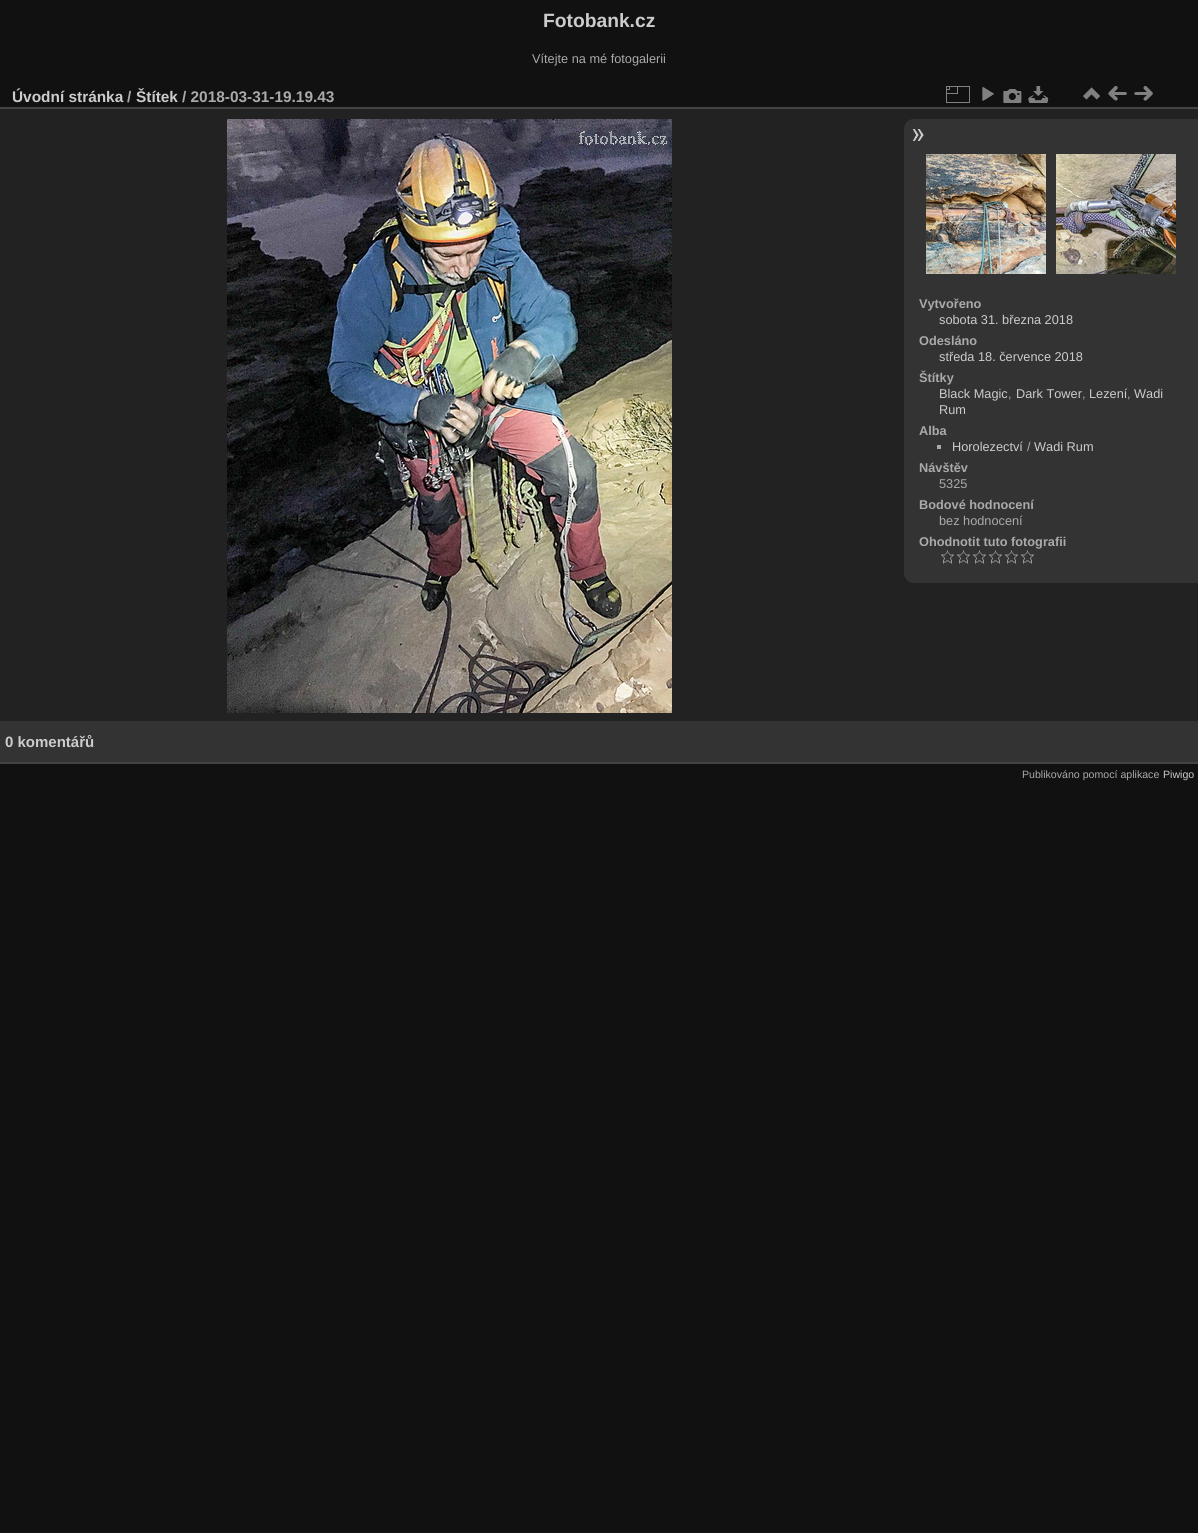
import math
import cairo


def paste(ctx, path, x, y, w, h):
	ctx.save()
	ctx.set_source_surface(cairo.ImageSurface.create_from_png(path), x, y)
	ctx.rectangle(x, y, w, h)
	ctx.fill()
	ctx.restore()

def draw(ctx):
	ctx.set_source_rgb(0.067, 0.067, 0.067)
	ctx.paint()
	ctx.select_font_face('Liberation Sans', cairo.FONT_SLANT_NORMAL, cairo.FONT_WEIGHT_BOLD)
	ctx.set_font_size(19.25)
	ctx.set_source_rgb(0.8, 0.8, 0.8)
	ctx.move_to(543, 27)
	ctx.show_text('Fotobank.cz')
	ctx.select_font_face('Liberation Sans')
	ctx.set_font_size(12.75)
	ctx.set_source_rgb(0.667, 0.667, 0.667)
	ctx.move_to(532, 63)
	ctx.show_text('Vítejte na mé fotogalerii')
	ctx.set_source_rgb(0.133, 0.133, 0.133)
	ctx.rectangle(0, 109, 1198, 612)
	ctx.fill()
	ctx.set_source_rgb(0.267, 0.267, 0.267)
	ctx.rectangle(0, 762, 1198, 2)
	ctx.rectangle(0, 107, 1198, 2)
	ctx.fill()
	ctx.select_font_face('Liberation Sans', cairo.FONT_SLANT_NORMAL, cairo.FONT_WEIGHT_BOLD)
	ctx.set_font_size(15.4)
	ctx.set_source_rgb(0.8, 0.8, 0.8)
	ctx.move_to(12, 102)
	ctx.show_text('Úvodní stránka')
	ctx.set_source_rgb(0.667, 0.667, 0.667)
	ctx.move_to(127, 102)
	ctx.show_text('/')
	ctx.set_source_rgb(0.8, 0.8, 0.8)
	ctx.move_to(136, 102)
	ctx.show_text('Štítek')
	ctx.set_source_rgb(0.667, 0.667, 0.667)
	ctx.move_to(182, 102)
	ctx.show_text('/ 2018-03-31-19.19.43')
	paste(ctx, 'media/1.png', 946, 86, 24, 17)
	paste(ctx, 'media/2.png', 982, 87, 12, 14)
	paste(ctx, 'media/3.png', 1003, 89, 19, 14)
	paste(ctx, 'media/4.png', 1028, 86, 21, 17)
	paste(ctx, 'media/5.png', 1083, 87, 17, 13)
	paste(ctx, 'media/6.png', 1108, 86, 19, 15)
	paste(ctx, 'media/7.png', 1134, 86, 19, 15)
	paste(ctx, 'media/8.png', 227, 119, 445, 594)
	ctx.set_source_rgb(0.2, 0.2, 0.2)
	ctx.new_path()
	ctx.move_to(914, 119)
	ctx.line_to(1198, 119)
	ctx.line_to(1198, 583)
	ctx.line_to(914, 583)
	ctx.curve_to(908.5, 583, 904, 578.5, 904, 573)
	ctx.line_to(904, 129)
	ctx.curve_to(904, 123.5, 908.5, 119, 914, 119)
	ctx.close_path()
	ctx.fill()
	paste(ctx, 'media/9.png', 912, 129, 12, 12)
	paste(ctx, 'media/10.png', 926, 154, 120, 120)
	paste(ctx, 'media/11.png', 1056, 154, 120, 120)
	ctx.set_font_size(12.75)
	ctx.set_source_rgb(0.667, 0.667, 0.667)
	ctx.move_to(919, 308)
	ctx.show_text('Vytvořeno')
	ctx.select_font_face('Liberation Sans')
	ctx.set_source_rgb(0.8, 0.8, 0.8)
	ctx.move_to(939, 324)
	ctx.show_text('sobota 31. března 2018')
	ctx.select_font_face('Liberation Sans', cairo.FONT_SLANT_NORMAL, cairo.FONT_WEIGHT_BOLD)
	ctx.set_source_rgb(0.667, 0.667, 0.667)
	ctx.move_to(919, 345)
	ctx.show_text('Odesláno')
	ctx.select_font_face('Liberation Sans')
	ctx.set_source_rgb(0.8, 0.8, 0.8)
	ctx.move_to(939, 361)
	ctx.show_text('středa 18. července 2018')
	ctx.select_font_face('Liberation Sans', cairo.FONT_SLANT_NORMAL, cairo.FONT_WEIGHT_BOLD)
	ctx.set_source_rgb(0.667, 0.667, 0.667)
	ctx.move_to(919, 382)
	ctx.show_text('Štítky')
	ctx.select_font_face('Liberation Sans')
	ctx.set_source_rgb(0.8, 0.8, 0.8)
	ctx.move_to(939, 398)
	ctx.show_text('Black Magic')
	ctx.set_source_rgb(0.667, 0.667, 0.667)
	ctx.move_to(1008, 398)
	ctx.show_text(',')
	ctx.set_source_rgb(0.8, 0.8, 0.8)
	ctx.move_to(1016, 398)
	ctx.show_text('Dark Tower')
	ctx.set_source_rgb(0.667, 0.667, 0.667)
	ctx.move_to(1082, 398)
	ctx.show_text(',')
	ctx.set_source_rgb(0.8, 0.8, 0.8)
	ctx.move_to(1089, 398)
	ctx.show_text('Lezení')
	ctx.set_source_rgb(0.667, 0.667, 0.667)
	ctx.move_to(1127, 398)
	ctx.show_text(',')
	ctx.set_source_rgb(0.8, 0.8, 0.8)
	ctx.move_to(1134, 398)
	ctx.show_text('Wadi')
	ctx.move_to(939, 414)
	ctx.show_text('Rum')
	ctx.select_font_face('Liberation Sans', cairo.FONT_SLANT_NORMAL, cairo.FONT_WEIGHT_BOLD)
	ctx.set_source_rgb(0.667, 0.667, 0.667)
	ctx.move_to(919, 435)
	ctx.show_text('Alba')
	ctx.rectangle(937, 445, 4, 4)
	ctx.fill()
	ctx.select_font_face('Liberation Sans')
	ctx.set_source_rgb(0.8, 0.8, 0.8)
	ctx.move_to(952, 451)
	ctx.show_text('Horolezectví')
	ctx.set_source_rgb(0.667, 0.667, 0.667)
	ctx.move_to(1027, 451)
	ctx.show_text('/')
	ctx.set_source_rgb(0.8, 0.8, 0.8)
	ctx.move_to(1034, 451)
	ctx.show_text('Wadi Rum')
	ctx.select_font_face('Liberation Sans', cairo.FONT_SLANT_NORMAL, cairo.FONT_WEIGHT_BOLD)
	ctx.set_source_rgb(0.667, 0.667, 0.667)
	ctx.move_to(919, 472)
	ctx.show_text('Návštěv')
	ctx.select_font_face('Liberation Sans')
	ctx.move_to(939, 488)
	ctx.show_text('5325')
	ctx.select_font_face('Liberation Sans', cairo.FONT_SLANT_NORMAL, cairo.FONT_WEIGHT_BOLD)
	ctx.move_to(919, 509)
	ctx.show_text('Bodové hodnocení')
	ctx.select_font_face('Liberation Sans')
	ctx.move_to(939, 525)
	ctx.show_text('bez hodnocení')
	ctx.select_font_face('Liberation Sans', cairo.FONT_SLANT_NORMAL, cairo.FONT_WEIGHT_BOLD)
	ctx.move_to(919, 546)
	ctx.show_text('Ohodnotit tuto fotografii')
	paste(ctx, 'media/12.png', 941, 550, 13, 14)
	paste(ctx, 'media/12.png', 957, 550, 13, 14)
	paste(ctx, 'media/12.png', 973, 550, 13, 14)
	paste(ctx, 'media/12.png', 989, 550, 13, 14)
	paste(ctx, 'media/12.png', 1005, 550, 13, 14)
	paste(ctx, 'media/12.png', 1021, 550, 13, 14)
	ctx.set_source_rgb(0.2, 0.2, 0.2)
	ctx.rectangle(0, 721, 1198, 41)
	ctx.fill()
	ctx.set_font_size(15)
	ctx.set_source_rgb(0.8, 0.8, 0.8)
	ctx.move_to(5, 747)
	ctx.show_text('0 komentářů')
	ctx.select_font_face('Liberation Sans')
	ctx.set_font_size(10.6)
	ctx.set_source_rgb(0.667, 0.667, 0.667)
	ctx.move_to(1022, 778)
	ctx.show_text('Publikováno pomocí aplikace')
	ctx.set_source_rgb(0.8, 0.8, 0.8)
	ctx.move_to(1163, 778)
	ctx.show_text('Piwigo')


surface = cairo.ImageSurface(cairo.FORMAT_RGB24, 1198, 1533)
ctx = cairo.Context(surface)
options = cairo.FontOptions()
options.set_hint_metrics(cairo.HINT_METRICS_OFF)
options.set_hint_style(cairo.HINT_STYLE_NONE)
ctx.set_font_options(options)
ctx.set_miter_limit(4)
draw(ctx)
surface.write_to_png('image.png')
